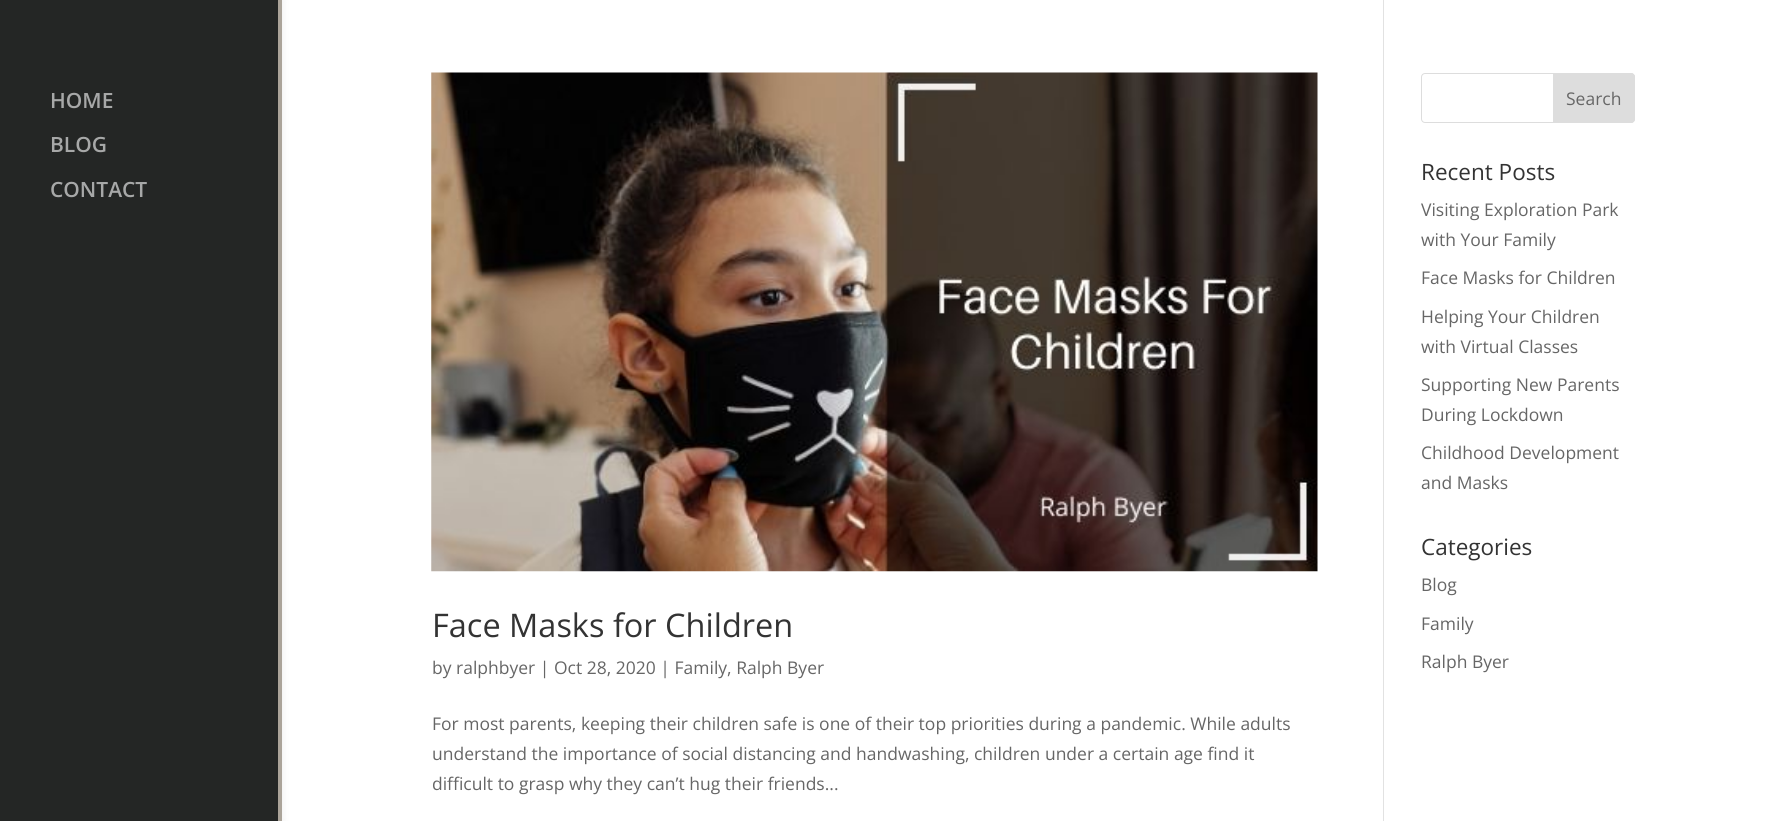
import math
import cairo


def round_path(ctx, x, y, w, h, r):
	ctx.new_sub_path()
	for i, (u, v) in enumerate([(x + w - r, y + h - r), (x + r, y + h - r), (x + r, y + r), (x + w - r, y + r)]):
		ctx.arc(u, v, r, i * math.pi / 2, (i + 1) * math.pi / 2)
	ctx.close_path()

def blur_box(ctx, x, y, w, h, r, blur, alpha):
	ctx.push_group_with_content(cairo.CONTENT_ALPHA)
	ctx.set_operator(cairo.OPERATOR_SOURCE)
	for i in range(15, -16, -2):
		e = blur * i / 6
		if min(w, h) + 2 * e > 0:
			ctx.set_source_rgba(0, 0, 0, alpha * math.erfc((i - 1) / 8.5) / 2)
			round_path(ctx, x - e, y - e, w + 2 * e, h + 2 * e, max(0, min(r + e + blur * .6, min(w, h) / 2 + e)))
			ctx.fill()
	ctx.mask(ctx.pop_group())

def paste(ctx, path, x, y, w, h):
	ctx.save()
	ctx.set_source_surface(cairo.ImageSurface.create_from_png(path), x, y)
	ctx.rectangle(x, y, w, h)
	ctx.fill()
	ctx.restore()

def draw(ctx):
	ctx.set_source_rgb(1, 1, 1)
	ctx.paint()
	ctx.set_source_rgb(0, 0, 0)
	blur_box(ctx, 0, 0, 281, 821, 0, 4.5, 0.1)
	ctx.set_source_rgb(0.141, 0.149, 0.145)
	ctx.rectangle(0, 0, 278, 821)
	ctx.fill()
	ctx.set_source_rgb(0.671, 0.643, 0.604)
	ctx.rectangle(278, 0, 4, 821)
	ctx.fill()
	ctx.select_font_face('Open Sans SemiBold')
	ctx.set_font_size(21)
	ctx.set_source_rgb(0.655, 0.659, 0.659)
	for x, y, s in [
		(50, 108, 'HOME'),
		(50, 152, 'BLOG'),
		(50, 197, 'CONTACT'),
	]:
		ctx.move_to(x, y)
		ctx.show_text(s)
	ctx.set_source_rgb(0.886, 0.886, 0.886)
	ctx.rectangle(1383, 0, 1, 821)
	ctx.fill()
	round_path(ctx, 1421.5, 73.5, 213, 49, 3.5)
	ctx.set_source_rgb(0.867, 0.867, 0.867)
	ctx.set_line_width(1)
	ctx.stroke()
	ctx.new_path()
	ctx.move_to(1553.5, 73.5)
	ctx.line_to(1631, 73.5)
	ctx.curve_to(1633, 73.5, 1634.5, 75, 1634.5, 77)
	ctx.line_to(1634.5, 119)
	ctx.curve_to(1634.5, 121, 1633, 122.5, 1631, 122.5)
	ctx.line_to(1553.5, 122.5)
	ctx.close_path()
	ctx.fill_preserve()
	ctx.stroke()
	ctx.select_font_face('Open Sans')
	ctx.set_font_size(17.5)
	ctx.set_source_rgb(0.4, 0.4, 0.4)
	ctx.move_to(1566, 105)
	ctx.show_text('Search')
	ctx.set_font_size(22.5)
	ctx.set_source_rgb(0.2, 0.2, 0.2)
	ctx.move_to(1421, 180)
	ctx.show_text('Recent Posts')
	ctx.set_font_size(17.5)
	ctx.set_source_rgb(0.4, 0.4, 0.4)
	for x, y, s in [
		(1421, 216, 'Visiting Exploration Park'),
		(1421, 246, 'with Your Family'),
		(1421, 284, 'Face Masks for Children'),
		(1421, 323, 'Helping Your Children'),
		(1421, 353, 'with Virtual Classes'),
		(1421, 391, 'Supporting New Parents'),
		(1421, 421, 'During Lockdown'),
		(1421, 459, 'Childhood Development'),
		(1421, 489, 'and Masks'),
	]:
		ctx.move_to(x, y)
		ctx.show_text(s)
	ctx.set_font_size(22.5)
	ctx.set_source_rgb(0.2, 0.2, 0.2)
	ctx.move_to(1421, 555)
	ctx.show_text('Categories')
	ctx.set_font_size(17.5)
	ctx.set_source_rgb(0.4, 0.4, 0.4)
	for x, y, s in [
		(1421, 591, 'Blog'),
		(1421, 630, 'Family'),
		(1421, 668, 'Ralph Byer'),
	]:
		ctx.move_to(x, y)
		ctx.show_text(s)
	paste(ctx, 'media/1.png', 431, 72, 887, 500)
	ctx.set_font_size(32.5)
	ctx.set_source_rgb(0.2, 0.2, 0.2)
	ctx.move_to(432, 637)
	ctx.show_text('Face Masks for Children')
	ctx.set_font_size(17.5)
	ctx.set_source_rgb(0.4, 0.4, 0.4)
	for x, y, s in [
		(432, 674, 'by ralphbyer | Oct 28, 2020 | Family, Ralph Byer'),
		(432, 730, 'For most parents, keeping their children safe is one of their top priorities during a pandemic. While adults'),
		(432, 760, 'understand the importance of social distancing and handwashing, children under a certain age find it'),
		(432, 790, 'difficult to grasp why they can’t hug their friends...'),
	]:
		ctx.move_to(x, y)
		ctx.show_text(s)


surface = cairo.ImageSurface(cairo.FORMAT_RGB24, 1785, 821)
ctx = cairo.Context(surface)
options = cairo.FontOptions()
options.set_hint_metrics(cairo.HINT_METRICS_OFF)
options.set_hint_style(cairo.HINT_STYLE_NONE)
ctx.set_font_options(options)
ctx.set_miter_limit(4)
draw(ctx)
surface.write_to_png('image.png')
